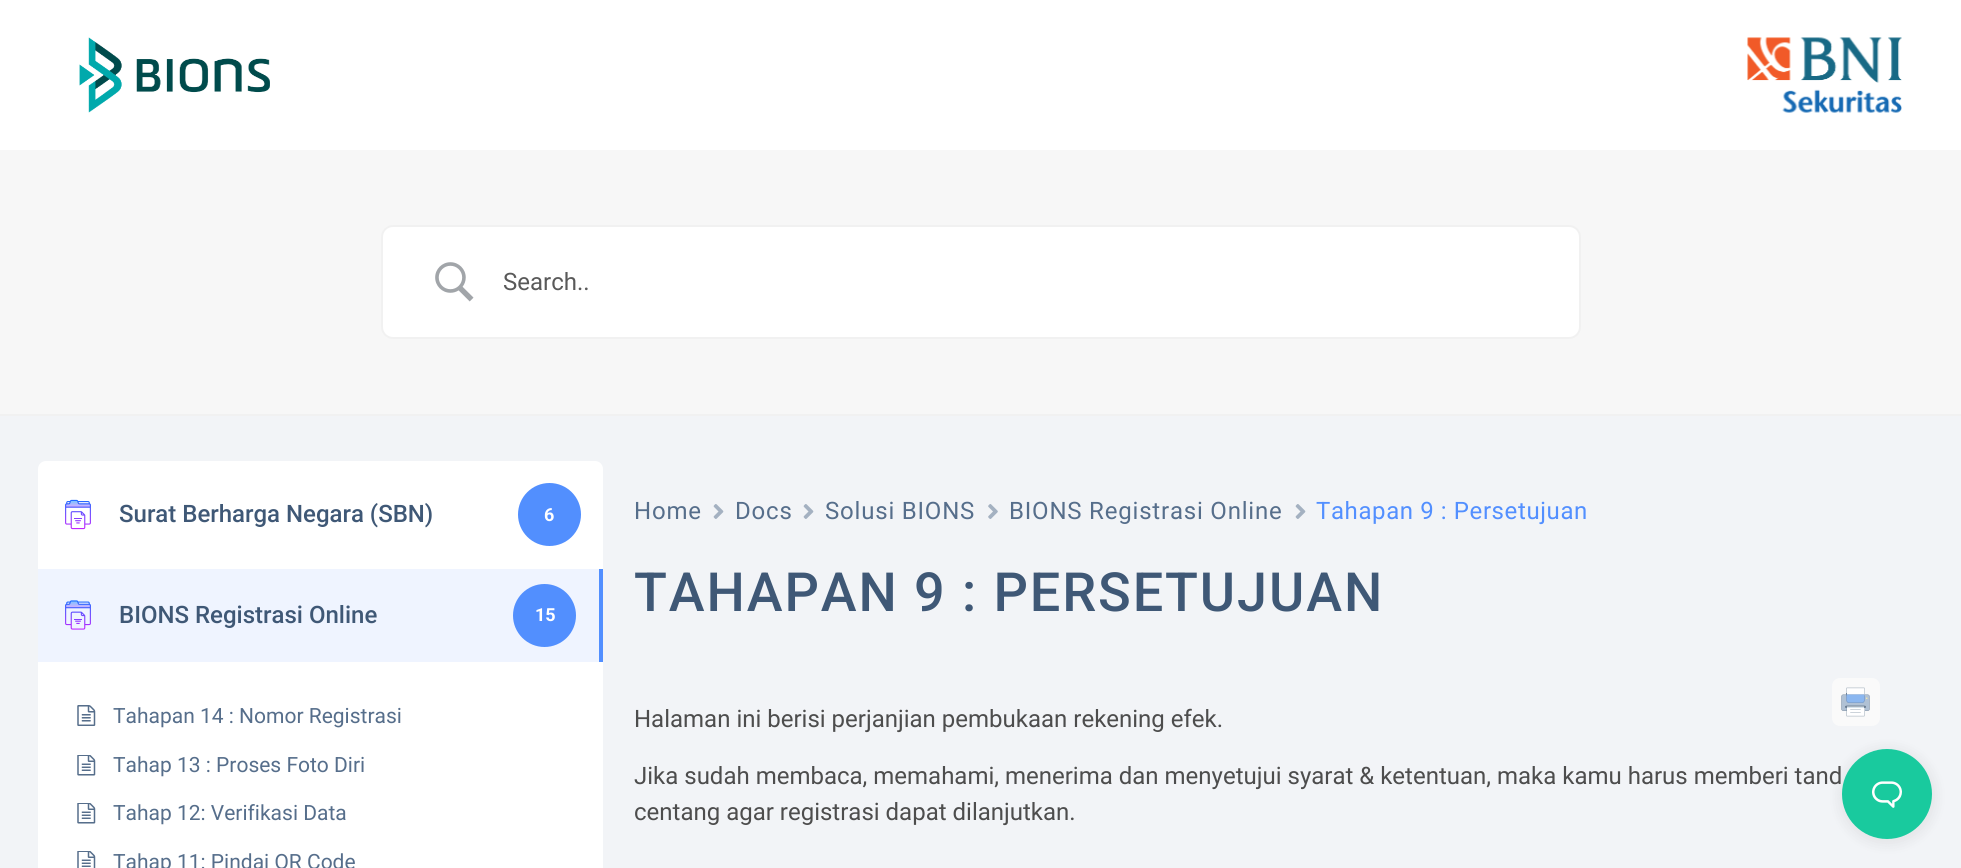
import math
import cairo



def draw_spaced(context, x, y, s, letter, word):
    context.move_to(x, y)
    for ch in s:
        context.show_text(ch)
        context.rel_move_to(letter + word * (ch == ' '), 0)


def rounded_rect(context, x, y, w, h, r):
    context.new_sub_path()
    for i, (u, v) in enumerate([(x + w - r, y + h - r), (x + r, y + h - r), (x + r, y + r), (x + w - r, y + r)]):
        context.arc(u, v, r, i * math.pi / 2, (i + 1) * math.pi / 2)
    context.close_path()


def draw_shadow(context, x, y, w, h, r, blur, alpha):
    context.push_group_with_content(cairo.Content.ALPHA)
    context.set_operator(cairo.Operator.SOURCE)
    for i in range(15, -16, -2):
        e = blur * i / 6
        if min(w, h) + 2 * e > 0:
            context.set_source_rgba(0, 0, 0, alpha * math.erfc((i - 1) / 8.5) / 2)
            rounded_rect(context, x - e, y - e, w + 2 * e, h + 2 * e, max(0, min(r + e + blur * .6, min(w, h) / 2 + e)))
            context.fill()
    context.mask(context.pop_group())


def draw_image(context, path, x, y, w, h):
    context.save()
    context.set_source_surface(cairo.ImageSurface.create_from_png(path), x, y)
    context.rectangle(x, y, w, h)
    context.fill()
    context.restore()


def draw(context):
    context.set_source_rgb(1, 1, 1)
    context.paint()
    draw_image(context, "images/1.png", 79, 37, 191, 76)
    draw_image(context, "images/2.png", 1747, 37, 155, 76)
    context.set_source_rgb(242 / 255, 244 / 255, 247 / 255)
    context.rectangle(0, 416, 1961, 452)
    context.fill()
    context.set_source_rgb(247 / 255, 247 / 255, 247 / 255)
    context.rectangle(0, 150, 1961, 264)
    context.fill()
    context.set_source_rgb(241 / 255, 241 / 255, 241 / 255)
    context.rectangle(0, 414, 1961, 2)
    context.fill()
    context.set_source_rgb(1, 1, 1)
    rounded_rect(context, 382, 226, 1198, 112, 11)
    context.fill_preserve()
    context.set_source_rgb(241 / 255, 241 / 255, 241 / 255)
    context.stroke()
    draw_image(context, "images/3.png", 435, 262, 39, 40)
    context.set_source_rgb(1, 1, 1)
    rounded_rect(context, 38, 461, 565, 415, 8)
    context.fill()
    draw_image(context, "images/4.png", 65, 499, 26, 31)
    context.set_source_rgb(82 / 255, 143 / 255, 254 / 255)
    context.arc(549.5, 514.5, 31.5, 0, 2 * math.pi)
    context.fill()
    context.set_source_rgb(239 / 255, 244 / 255, 1)
    context.rectangle(38, 569, 561, 93)
    context.fill()
    context.set_source_rgb(82 / 255, 143 / 255, 1)
    context.rectangle(599, 569, 4, 93)
    context.fill()
    draw_image(context, "images/5.png", 65, 600, 26, 30)
    context.set_source_rgb(82 / 255, 143 / 255, 254 / 255)
    context.arc(544.5, 615.5, 31.5, 0, 2 * math.pi)
    context.fill()
    draw_image(context, "images/6.png", 77, 705, 19, 21)
    draw_image(context, "images/7.png", 77, 755, 19, 21)
    draw_image(context, "images/7.png", 77, 803, 19, 21)
    draw_image(context, "images/8.png", 77, 851, 19, 17)
    draw_image(context, "images/9.png", 713, 504, 11, 15)
    draw_image(context, "images/9.png", 803, 504, 11, 15)
    draw_image(context, "images/10.png", 988, 504, 10, 15)
    draw_image(context, "images/9.png", 1295, 504, 11, 15)
    context.set_source_rgb(250 / 255, 250 / 255, 250 / 255)
    rounded_rect(context, 1832, 678, 48, 48, 8)
    context.fill()
    draw_image(context, "images/11.png", 1841, 687, 29, 30)
    context.set_source_rgb(0, 0, 0)
    draw_shadow(context, 1841, 750, 93, 93, 46.5, 7.5, 0.08)
    context.set_source_rgb(25 / 255, 202 / 255, 158 / 255)
    context.arc(1887, 794, 45, 0, 2 * math.pi)
    context.fill()
    draw_image(context, "images/12.png", 1872, 781, 30, 27)
    context.select_font_face("Roboto")
    context.set_font_size(24)
    context.set_source_rgb(89 / 255, 89 / 255, 89 / 255)
    context.move_to(503, 290)
    context.show_text("Search..")
    context.select_font_face("Roboto Medium")
    context.set_source_rgb(63 / 255, 88 / 255, 118 / 255)
    context.move_to(119, 522)
    context.show_text("Surat Berharga Negara (SBN)")
    context.select_font_face("Roboto", cairo.FontSlant.NORMAL, cairo.FontWeight.BOLD)
    context.set_font_size(18)
    context.set_source_rgb(1, 1, 1)
    context.move_to(544, 521)
    context.show_text("6")
    context.select_font_face("Roboto Medium")
    context.set_font_size(24)
    context.set_source_rgb(63 / 255, 88 / 255, 118 / 255)
    context.move_to(119, 623)
    context.show_text("BIONS Registrasi Online")
    context.select_font_face("Roboto", cairo.FontSlant.NORMAL, cairo.FontWeight.BOLD)
    context.set_font_size(18)
    context.set_source_rgb(1, 1, 1)
    context.move_to(535, 621)
    context.show_text("15")
    context.select_font_face("Roboto")
    context.set_font_size(21)
    context.set_source_rgb(86 / 255, 110 / 255, 139 / 255)
    context.move_to(113, 723)
    context.show_text("Tahapan 14 : Nomor Registrasi")
    context.move_to(113, 772)
    context.show_text("Tahap 13 : Proses Foto Diri")
    context.move_to(113, 820)
    context.show_text("Tahap 12: Verifikasi Data")
    context.move_to(113, 869)
    context.show_text("Tahap 11: Pindai QR Code")
    context.set_font_size(24)
    draw_spaced(context, 634, 519, "Home", 0.8, 0)
    draw_spaced(context, 735, 519, "Docs", 0.8, 0)
    draw_spaced(context, 825, 519, "Solusi BIONS", 0.8, 0)
    draw_spaced(context, 1009, 519, "BIONS Registrasi Online", 0.8, 0)
    context.set_source_rgb(82 / 255, 143 / 255, 1)
    draw_spaced(context, 1316, 519, "Tahapan 9 : Persetujuan", 0.6, 0)
    context.select_font_face("Roboto Medium")
    context.set_font_size(54)
    context.set_source_rgb(63 / 255, 88 / 255, 118 / 255)
    draw_spaced(context, 634, 611, "TAHAPAN 9 : PERSETUJUAN", 1.9, 0)
    context.select_font_face("Roboto")
    context.set_font_size(24)
    context.set_source_rgb(77 / 255, 77 / 255, 77 / 255)
    context.move_to(634, 727)
    context.show_text("Halaman ini berisi perjanjian pembukaan rekening efek.")
    context.move_to(634, 784)
    context.show_text("Jika sudah membaca, memahami, menerima dan menyetujui syarat & ketentuan, maka kamu harus memberi tand")
    context.move_to(634, 820)
    context.show_text("centang agar registrasi dapat dilanjutkan.")


surface = cairo.ImageSurface(cairo.Format.RGB24, 1961, 868)
context = cairo.Context(surface)
options = cairo.FontOptions()
options.set_hint_metrics(cairo.HintMetrics.OFF)
options.set_hint_style(cairo.HintStyle.NONE)
context.set_font_options(options)
context.set_miter_limit(4)
draw(context)
surface.write_to_png("out.png")
